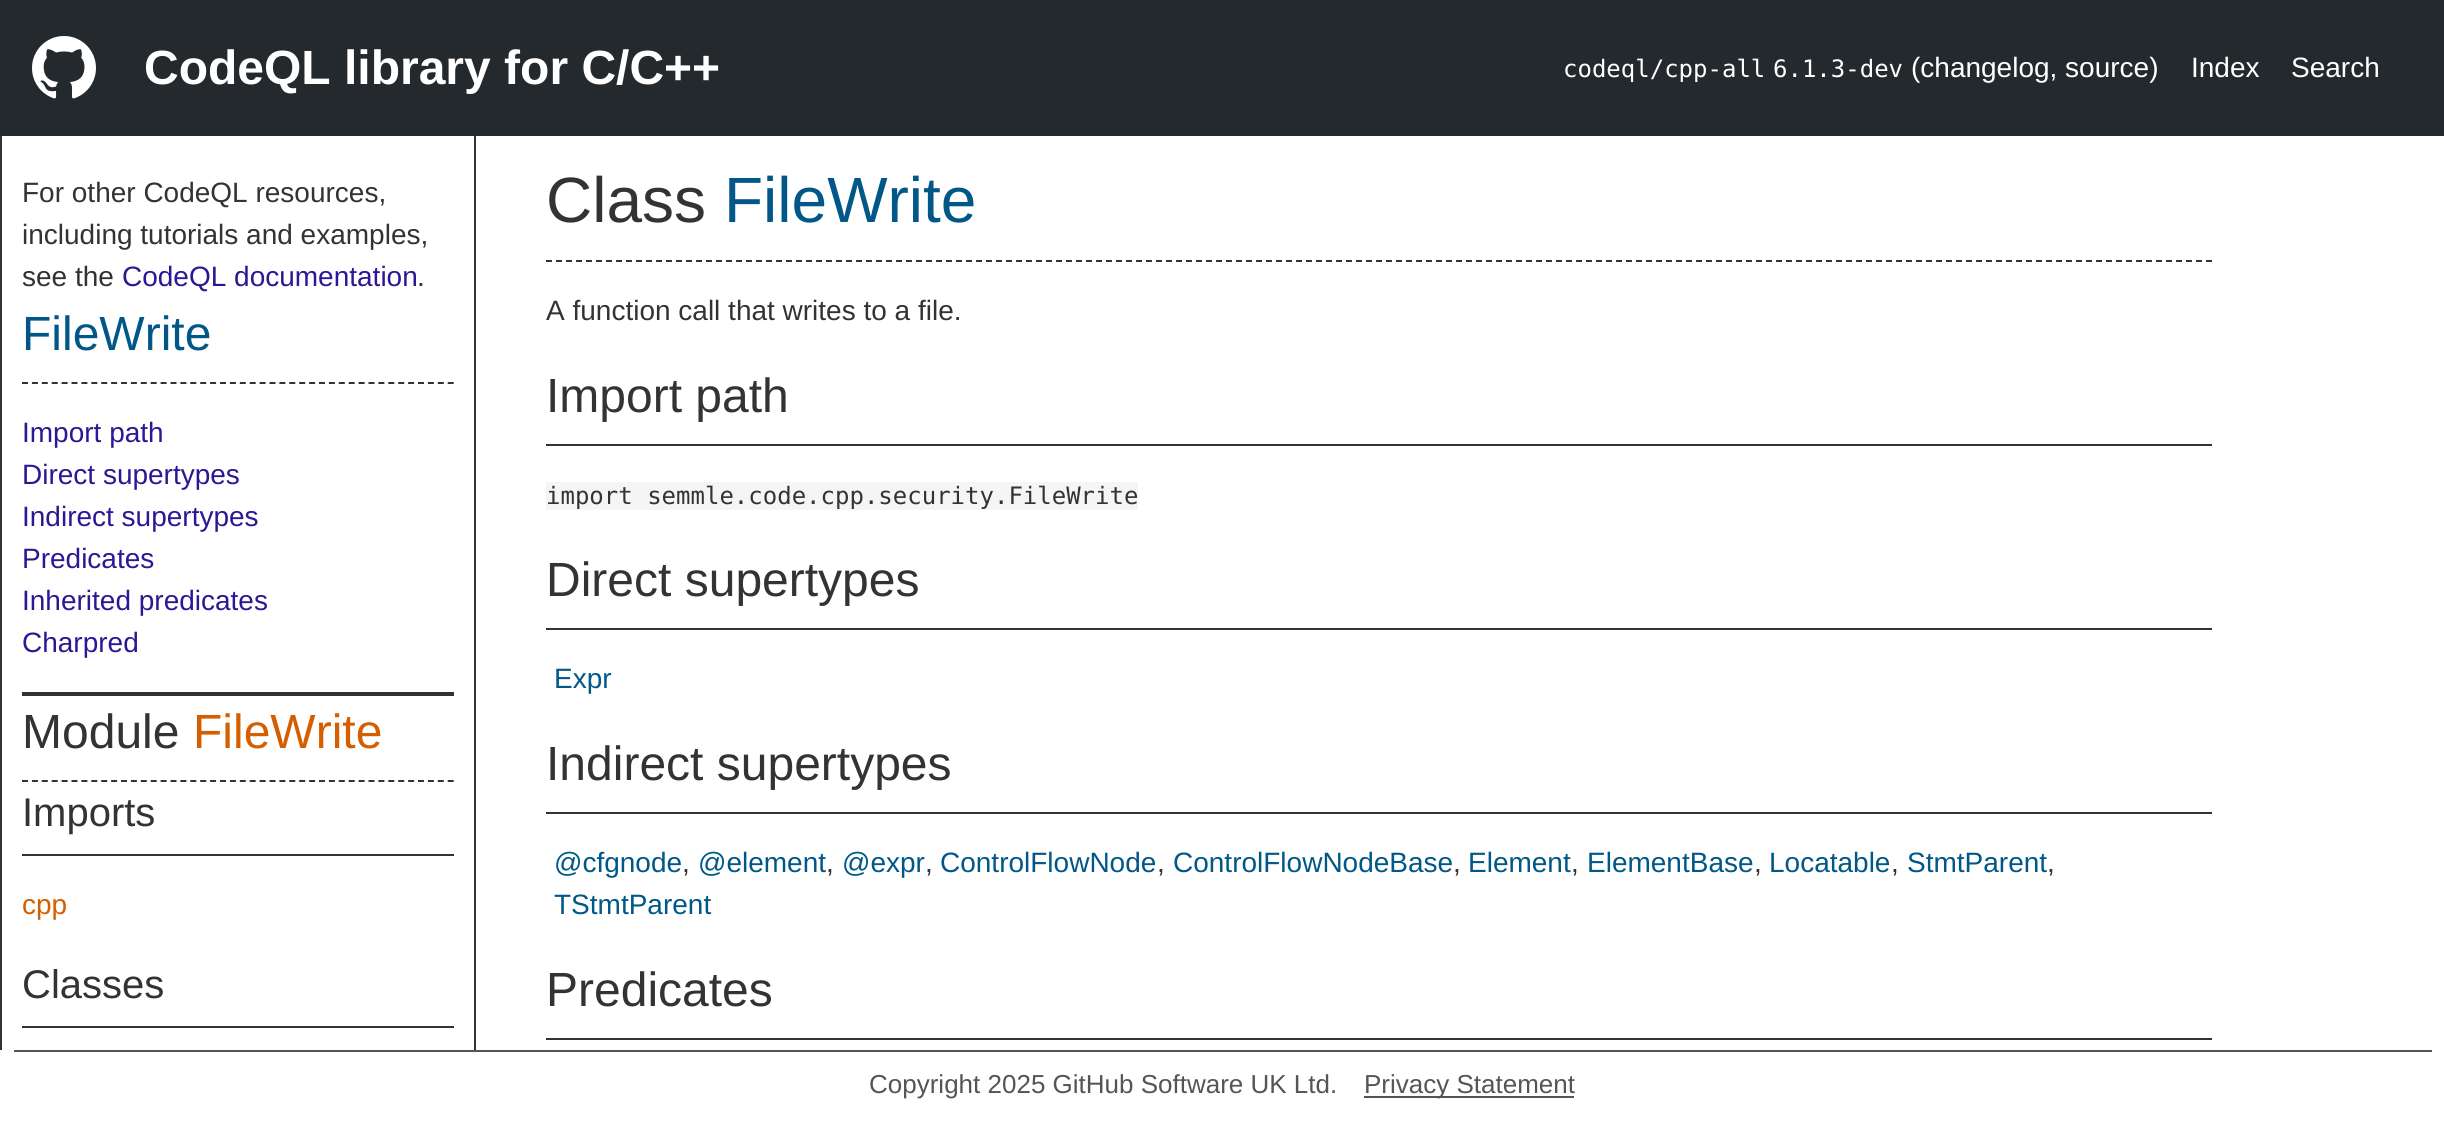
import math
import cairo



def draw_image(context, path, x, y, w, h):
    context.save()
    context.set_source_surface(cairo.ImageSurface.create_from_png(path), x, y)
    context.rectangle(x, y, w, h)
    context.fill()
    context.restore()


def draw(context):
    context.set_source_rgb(1, 1, 1)
    context.paint()
    context.set_source_rgb(36 / 255, 41 / 255, 46 / 255)
    context.rectangle(0, 0, 2444, 136)
    context.fill()
    draw_image(context, "images/1.png", 32, 36, 64, 63)
    context.set_source_rgb(51 / 255, 51 / 255, 51 / 255)
    context.rectangle(474, 136, 2, 914)
    context.fill()
    context.rectangle(0, 136, 2, 914)
    context.fill()
    context.rectangle(22, 692, 432, 4)
    context.fill()
    context.new_path()
    context.move_to(22, 383)
    context.line_to(454, 383)
    context.set_dash([6, 3.9])
    context.stroke()
    context.new_path()
    context.move_to(22, 781)
    context.line_to(454, 781)
    context.stroke()
    context.rectangle(22, 854, 432, 2)
    context.fill()
    context.rectangle(22, 1026, 432, 2)
    context.fill()
    context.new_path()
    context.move_to(546, 261)
    context.line_to(2212, 261)
    context.set_dash([6, 4])
    context.stroke()
    context.rectangle(546, 444, 1666, 2)
    context.fill()
    context.set_source_rgb(245 / 255, 245 / 255, 245 / 255)
    context.rectangle(546, 482, 592, 28)
    context.fill()
    context.set_source_rgb(51 / 255, 51 / 255, 51 / 255)
    context.rectangle(546, 628, 1666, 2)
    context.fill()
    context.rectangle(546, 812, 1666, 2)
    context.fill()
    context.rectangle(546, 1038, 1666, 2)
    context.fill()
    context.set_source_rgb(85 / 255, 85 / 255, 85 / 255)
    context.rectangle(14, 1050, 2418, 2)
    context.fill()
    context.rectangle(1364, 1096, 210, 2)
    context.fill()
    context.select_font_face("Liberation Sans", cairo.FontSlant.NORMAL, cairo.FontWeight.BOLD)
    context.set_font_size(48)
    context.set_source_rgb(1, 1, 1)
    context.move_to(144, 84)
    context.show_text("CodeQL library for C/C++")
    context.select_font_face("DejaVu Sans Mono")
    context.set_font_size(24)
    context.move_to(1563, 77)
    context.show_text("codeql/cpp-all")
    context.move_to(1773, 77)
    context.show_text("6.1.3-dev")
    context.select_font_face("Liberation Sans")
    context.set_font_size(28)
    context.move_to(1911, 77)
    context.show_text("(changelog, source)")
    context.move_to(2191, 77)
    context.show_text("Index")
    context.move_to(2291, 77)
    context.show_text("Search")
    context.set_source_rgb(51 / 255, 51 / 255, 51 / 255)
    context.move_to(22, 202)
    context.show_text("For other CodeQL resources,")
    context.move_to(22, 244)
    context.show_text("including tutorials and examples,")
    context.move_to(22, 286)
    context.show_text("see the")
    context.set_source_rgb(47 / 255, 22 / 255, 149 / 255)
    context.move_to(122, 286)
    context.show_text("CodeQL documentation")
    context.set_source_rgb(51 / 255, 51 / 255, 51 / 255)
    context.move_to(417, 286)
    context.show_text(".")
    context.set_font_size(48)
    context.set_source_rgb(0, 87 / 255, 136 / 255)
    context.move_to(22, 350)
    context.show_text("FileWrite")
    context.set_font_size(28)
    context.set_source_rgb(47 / 255, 22 / 255, 149 / 255)
    context.move_to(22, 442)
    context.show_text("Import path")
    context.move_to(22, 484)
    context.show_text("Direct supertypes")
    context.move_to(22, 526)
    context.show_text("Indirect supertypes")
    context.move_to(22, 568)
    context.show_text("Predicates")
    context.move_to(22, 610)
    context.show_text("Inherited predicates")
    context.move_to(22, 652)
    context.show_text("Charpred")
    context.set_font_size(48)
    context.set_source_rgb(51 / 255, 51 / 255, 51 / 255)
    context.move_to(22, 748)
    context.show_text("Module")
    context.set_source_rgb(213 / 255, 94 / 255, 0)
    context.move_to(193, 748)
    context.show_text("FileWrite")
    context.set_font_size(40)
    context.set_source_rgb(51 / 255, 51 / 255, 51 / 255)
    context.move_to(22, 826)
    context.show_text("Imports")
    context.set_font_size(28)
    context.set_source_rgb(213 / 255, 94 / 255, 0)
    context.move_to(22, 914)
    context.show_text("cpp")
    context.set_font_size(40)
    context.set_source_rgb(51 / 255, 51 / 255, 51 / 255)
    context.move_to(22, 998)
    context.show_text("Classes")
    context.set_font_size(64)
    context.move_to(546, 222)
    context.show_text("Class")
    context.set_source_rgb(0, 87 / 255, 136 / 255)
    context.move_to(724, 222)
    context.show_text("FileWrite")
    context.set_font_size(28)
    context.set_source_rgb(51 / 255, 51 / 255, 51 / 255)
    context.move_to(546, 320)
    context.show_text("A function call that writes to a file.")
    context.set_font_size(48)
    context.move_to(546, 412)
    context.show_text("Import path")
    context.select_font_face("DejaVu Sans Mono")
    context.set_font_size(24)
    context.move_to(546, 504)
    context.show_text("import semmle.code.cpp.security.FileWrite")
    context.select_font_face("Liberation Sans")
    context.set_font_size(48)
    context.move_to(546, 596)
    context.show_text("Direct supertypes")
    context.set_font_size(28)
    context.set_source_rgb(0, 87 / 255, 136 / 255)
    context.move_to(554, 688)
    context.show_text("Expr")
    context.set_font_size(48)
    context.set_source_rgb(51 / 255, 51 / 255, 51 / 255)
    context.move_to(546, 780)
    context.show_text("Indirect supertypes")
    context.set_font_size(28)
    context.set_source_rgb(0, 87 / 255, 136 / 255)
    context.move_to(554, 872)
    context.show_text("@cfgnode")
    context.set_source_rgb(51 / 255, 51 / 255, 51 / 255)
    context.move_to(682, 872)
    context.show_text(",")
    context.set_source_rgb(0, 87 / 255, 136 / 255)
    context.move_to(698, 872)
    context.show_text("@element")
    context.set_source_rgb(51 / 255, 51 / 255, 51 / 255)
    context.move_to(826, 872)
    context.show_text(",")
    context.set_source_rgb(0, 87 / 255, 136 / 255)
    context.move_to(842, 872)
    context.show_text("@expr")
    context.set_source_rgb(51 / 255, 51 / 255, 51 / 255)
    context.move_to(925, 872)
    context.show_text(",")
    context.set_source_rgb(0, 87 / 255, 136 / 255)
    context.move_to(940, 872)
    context.show_text("ControlFlowNode")
    context.set_source_rgb(51 / 255, 51 / 255, 51 / 255)
    context.move_to(1157, 872)
    context.show_text(",")
    context.set_source_rgb(0, 87 / 255, 136 / 255)
    context.move_to(1173, 872)
    context.show_text("ControlFlowNodeBase")
    context.set_source_rgb(51 / 255, 51 / 255, 51 / 255)
    context.move_to(1453, 872)
    context.show_text(",")
    context.set_source_rgb(0, 87 / 255, 136 / 255)
    context.move_to(1468, 872)
    context.show_text("Element")
    context.set_source_rgb(51 / 255, 51 / 255, 51 / 255)
    context.move_to(1571, 872)
    context.show_text(",")
    context.set_source_rgb(0, 87 / 255, 136 / 255)
    context.move_to(1587, 872)
    context.show_text("ElementBase")
    context.set_source_rgb(51 / 255, 51 / 255, 51 / 255)
    context.move_to(1754, 872)
    context.show_text(",")
    context.set_source_rgb(0, 87 / 255, 136 / 255)
    context.move_to(1769, 872)
    context.show_text("Locatable")
    context.set_source_rgb(51 / 255, 51 / 255, 51 / 255)
    context.move_to(1891, 872)
    context.show_text(",")
    context.set_source_rgb(0, 87 / 255, 136 / 255)
    context.move_to(1907, 872)
    context.show_text("StmtParent")
    context.set_source_rgb(51 / 255, 51 / 255, 51 / 255)
    context.move_to(2047, 872)
    context.show_text(",")
    context.set_source_rgb(0, 87 / 255, 136 / 255)
    context.move_to(554, 914)
    context.show_text("TStmtParent")
    context.set_font_size(48)
    context.set_source_rgb(51 / 255, 51 / 255, 51 / 255)
    context.move_to(546, 1006)
    context.show_text("Predicates")
    context.set_font_size(26)
    context.set_source_rgb(85 / 255, 85 / 255, 85 / 255)
    context.move_to(869, 1093)
    context.show_text("Copyright 2025 GitHub Software UK Ltd.")
    context.move_to(1364, 1093)
    context.show_text("Privacy Statement")


surface = cairo.ImageSurface(cairo.Format.RGB24, 2444, 1129)
context = cairo.Context(surface)
options = cairo.FontOptions()
options.set_hint_metrics(cairo.HintMetrics.OFF)
options.set_hint_style(cairo.HintStyle.NONE)
context.set_font_options(options)
context.set_miter_limit(4)
draw(context)
surface.write_to_png("out.png")
